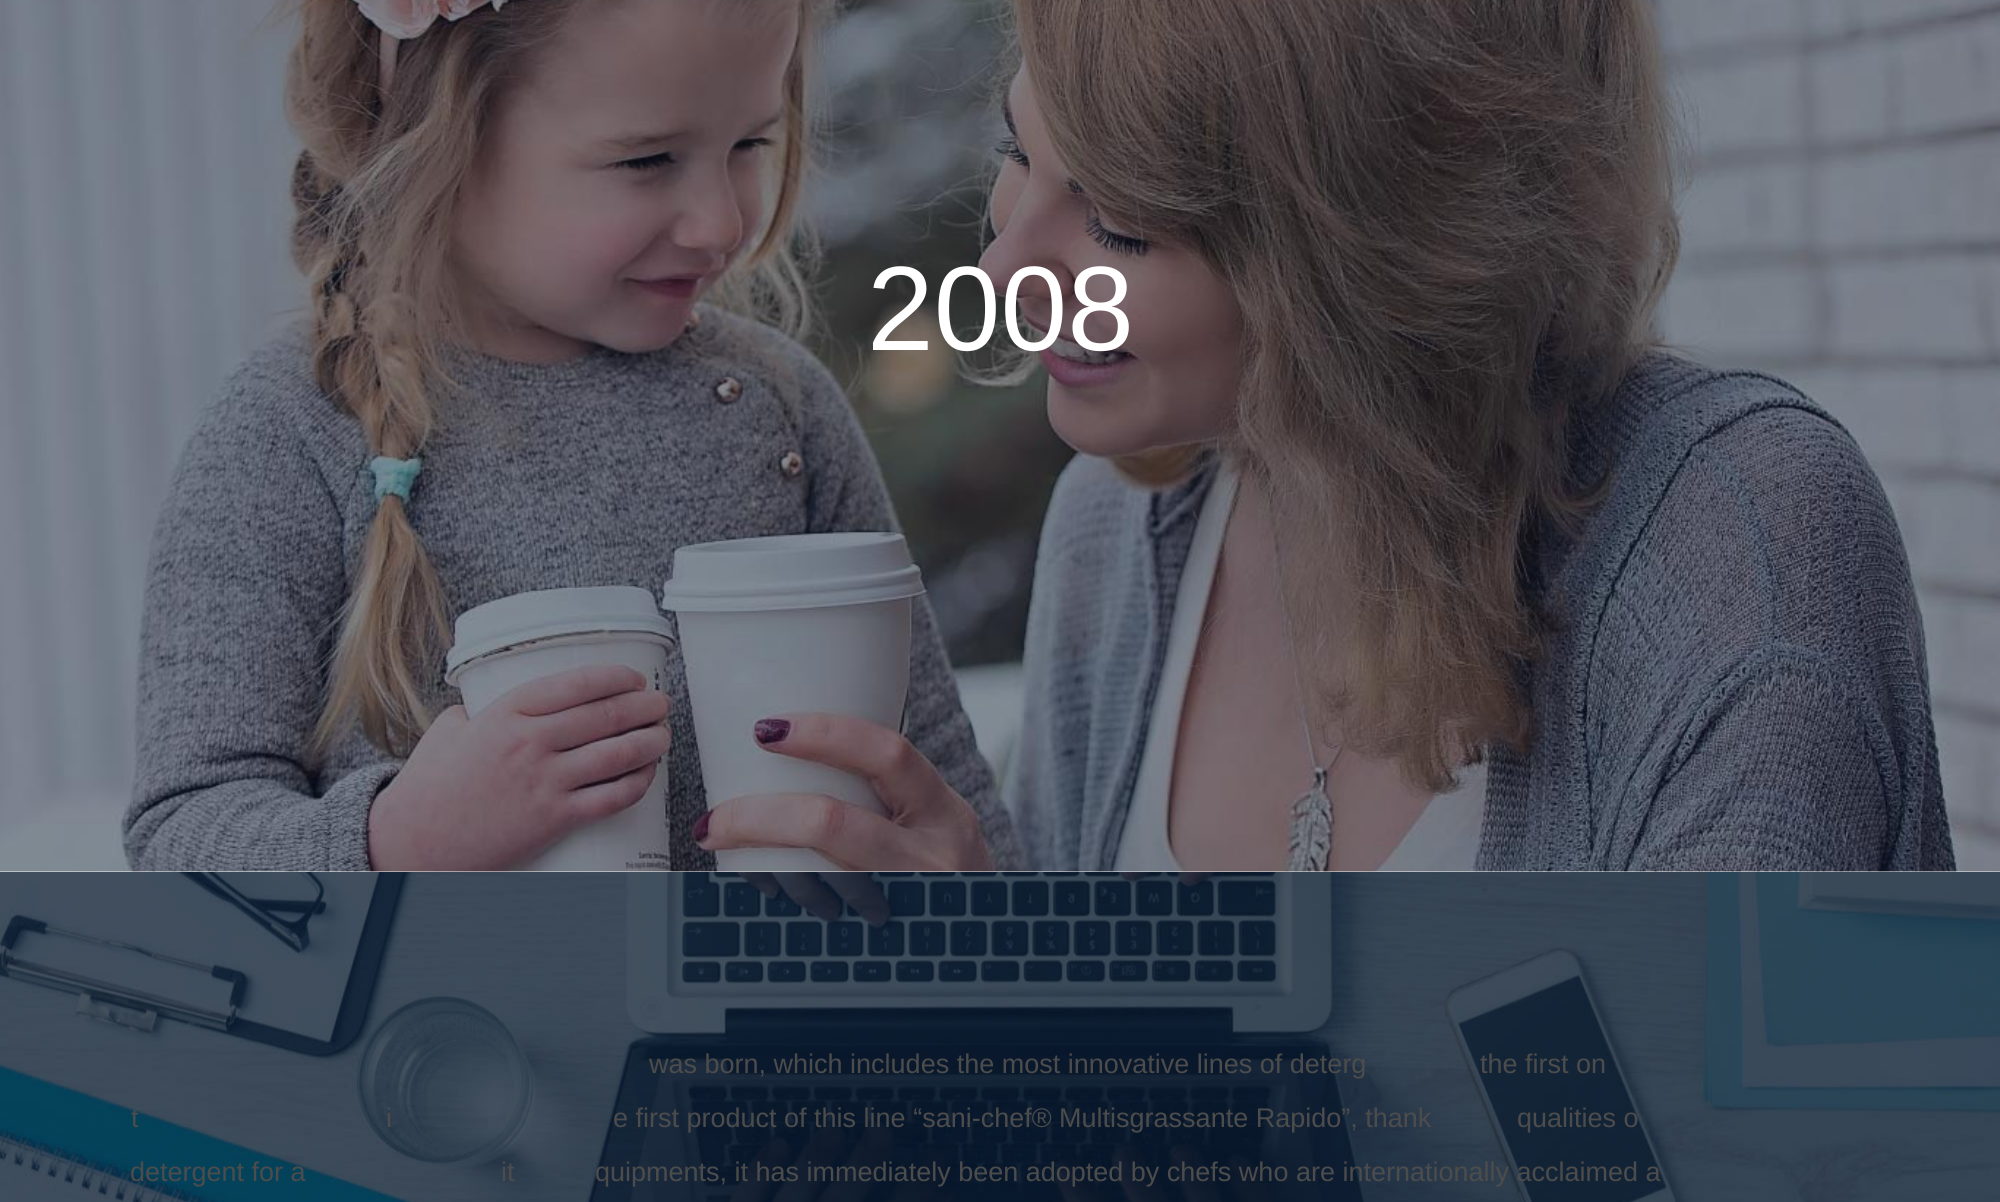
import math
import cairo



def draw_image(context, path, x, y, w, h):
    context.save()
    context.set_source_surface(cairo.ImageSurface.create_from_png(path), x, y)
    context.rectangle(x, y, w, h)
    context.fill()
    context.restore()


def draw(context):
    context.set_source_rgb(246 / 255, 246 / 255, 246 / 255)
    context.paint()
    draw_image(context, "images/1.png", 0, 0, 2000, 872)
    draw_image(context, "images/2.png", 0, 872, 2000, 330)
    context.select_font_face("Liberation Sans")
    context.set_font_size(120)
    context.set_source_rgb(1, 1, 1)
    context.move_to(867, 350)
    context.show_text("2008")
    context.set_font_size(27)
    context.set_source_rgb(76 / 255, 76 / 255, 76 / 255)
    context.move_to(649, 1073)
    context.show_text("was born, which includes the most innovative lines of deterg")
    context.move_to(1480, 1073)
    context.show_text("the first on")
    context.move_to(131, 1127)
    context.show_text("t")
    context.move_to(386, 1127)
    context.show_text("i")
    context.move_to(613, 1127)
    context.show_text("e first product of this line “sani-chef® Multisgrassante Rapido”, thank")
    context.move_to(1517, 1127)
    context.show_text("qualities o")
    context.move_to(130, 1181)
    context.show_text("detergent for a")
    context.move_to(501, 1181)
    context.show_text("it")
    context.move_to(595, 1181)
    context.show_text("quipments, it has immediately been adopted by chefs who are internationally acclaimed a")


surface = cairo.ImageSurface(cairo.Format.RGB24, 2000, 1202)
context = cairo.Context(surface)
options = cairo.FontOptions()
options.set_hint_metrics(cairo.HintMetrics.OFF)
options.set_hint_style(cairo.HintStyle.NONE)
context.set_font_options(options)
context.set_miter_limit(4)
draw(context)
surface.write_to_png("out.png")
